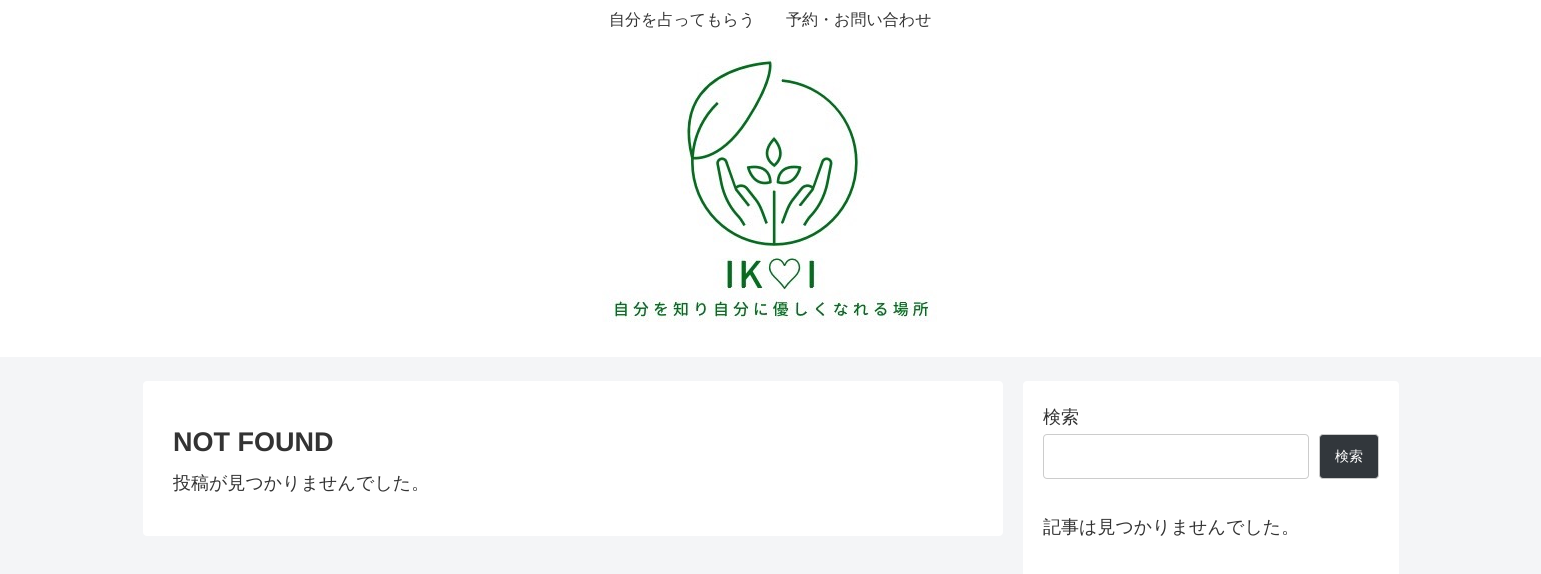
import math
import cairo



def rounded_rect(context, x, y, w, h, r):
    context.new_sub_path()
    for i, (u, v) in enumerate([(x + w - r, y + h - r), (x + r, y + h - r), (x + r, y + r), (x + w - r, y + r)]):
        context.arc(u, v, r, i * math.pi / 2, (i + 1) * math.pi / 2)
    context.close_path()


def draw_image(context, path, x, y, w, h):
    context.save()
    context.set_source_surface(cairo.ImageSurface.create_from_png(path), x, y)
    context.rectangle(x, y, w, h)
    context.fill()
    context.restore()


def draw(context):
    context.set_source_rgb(244 / 255, 245 / 255, 247 / 255)
    context.paint()
    context.set_source_rgb(1, 1, 1)
    context.rectangle(0, 0, 1541, 357)
    context.fill()
    draw_image(context, "images/1.png", 602, 50, 335, 272)
    rounded_rect(context, 143, 381, 860, 155, 4)
    context.fill()
    rounded_rect(context, 1023, 381, 376, 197, 4)
    context.fill()
    rounded_rect(context, 1043.5, 434.5, 265, 44, 3.5)
    context.set_source_rgb(204 / 255, 204 / 255, 204 / 255)
    context.set_line_width(1)
    context.stroke()
    context.set_source_rgb(50 / 255, 55 / 255, 60 / 255)
    rounded_rect(context, 1319.5, 434.5, 59, 44, 3.5)
    context.fill_preserve()
    context.set_source_rgb(204 / 255, 204 / 255, 204 / 255)
    context.stroke()
    context.select_font_face("WenQuanYi Zen Hei Medium")
    context.set_font_size(16)
    context.set_source_rgb(51 / 255, 51 / 255, 51 / 255)
    context.move_to(609, 25)
    context.show_text("自分を占ってもらう")
    context.move_to(786, 25)
    context.show_text("予約・お問い合わせ")
    context.select_font_face("Liberation Sans", cairo.FontSlant.NORMAL, cairo.FontWeight.BOLD)
    context.set_font_size(27)
    context.move_to(173, 451)
    context.show_text("NOT FOUND")
    context.select_font_face("WenQuanYi Zen Hei Medium")
    context.set_font_size(18)
    context.move_to(173, 489)
    context.show_text("投稿が見つかりませんでした。")
    context.move_to(1043, 423)
    context.show_text("検索")
    context.set_font_size(14)
    context.set_source_rgb(1, 1, 1)
    context.move_to(1335, 461)
    context.show_text("検索")
    context.set_font_size(18)
    context.set_source_rgb(51 / 255, 51 / 255, 51 / 255)
    context.move_to(1043, 533)
    context.show_text("記事は見つかりませんでした。")


surface = cairo.ImageSurface(cairo.Format.RGB24, 1541, 574)
context = cairo.Context(surface)
options = cairo.FontOptions()
options.set_hint_metrics(cairo.HintMetrics.OFF)
options.set_hint_style(cairo.HintStyle.NONE)
context.set_font_options(options)
context.set_miter_limit(4)
draw(context)
surface.write_to_png("out.png")
